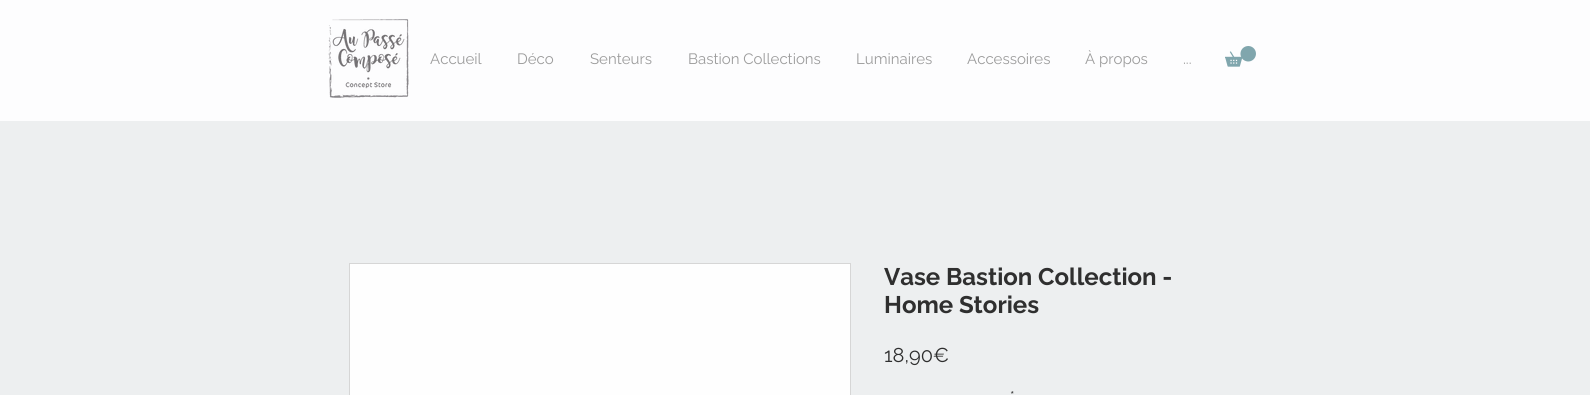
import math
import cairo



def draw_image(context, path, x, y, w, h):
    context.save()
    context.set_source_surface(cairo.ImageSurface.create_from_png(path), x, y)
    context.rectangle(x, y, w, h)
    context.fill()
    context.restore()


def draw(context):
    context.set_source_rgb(237 / 255, 239 / 255, 240 / 255)
    context.paint()
    context.set_source_rgb(253 / 255, 253 / 255, 254 / 255)
    context.rectangle(0, 0, 1590, 121)
    context.fill()
    draw_image(context, "images/1.png", 328, 19, 81, 79)
    draw_image(context, "images/2.png", 1225, 46, 31, 21)
    context.rectangle(349.5, 263.5, 501, 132)
    context.set_source_rgb(214 / 255, 214 / 255, 214 / 255)
    context.set_line_width(1)
    context.stroke()
    context.set_source_rgb(254 / 255, 254 / 255, 254 / 255)
    context.rectangle(350, 264, 500, 131)
    context.fill()
    context.select_font_face("Raleway")
    context.set_font_size(15)
    context.set_source_rgb(156 / 255, 156 / 255, 156 / 255)
    context.move_to(430, 64)
    context.show_text("Accueil")
    context.move_to(517, 64)
    context.show_text("Déco")
    context.move_to(590, 64)
    context.show_text("Senteurs")
    context.move_to(688, 64)
    context.show_text("Bastion Collections")
    context.move_to(856, 64)
    context.show_text("Luminaires")
    context.move_to(967, 64)
    context.show_text("Accessoires")
    context.move_to(1085, 64)
    context.show_text("À propos")
    context.move_to(1183, 64)
    context.show_text("...")
    context.select_font_face("Raleway", cairo.FontSlant.NORMAL, cairo.FontWeight.BOLD)
    context.set_font_size(24)
    context.set_source_rgb(47 / 255, 47 / 255, 47 / 255)
    context.move_to(884, 285)
    context.show_text("Vase Bastion Collection -")
    context.move_to(884, 313)
    context.show_text("Home Stories")
    context.select_font_face("Raleway")
    context.set_font_size(20)
    context.move_to(884, 362)
    context.show_text("18,90€")
    context.set_font_size(14)
    context.move_to(1010, 401)
    context.show_text("*")


surface = cairo.ImageSurface(cairo.Format.RGB24, 1590, 395)
context = cairo.Context(surface)
options = cairo.FontOptions()
options.set_hint_metrics(cairo.HintMetrics.OFF)
options.set_hint_style(cairo.HintStyle.NONE)
context.set_font_options(options)
context.set_miter_limit(4)
draw(context)
surface.write_to_png("out.png")
